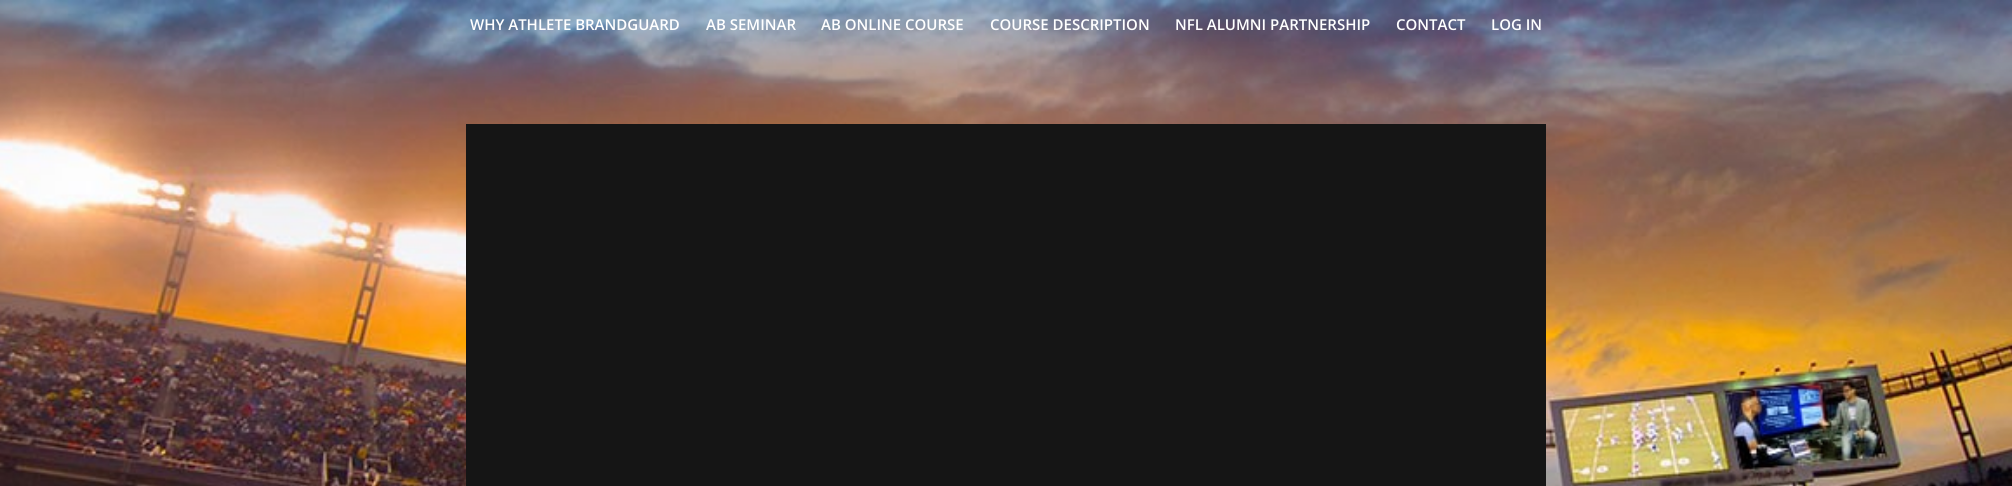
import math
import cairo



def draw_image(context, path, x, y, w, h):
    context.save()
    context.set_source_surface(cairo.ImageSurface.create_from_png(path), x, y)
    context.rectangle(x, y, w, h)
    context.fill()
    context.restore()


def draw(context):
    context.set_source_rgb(1, 1, 1)
    context.paint()
    draw_image(context, "images/1.png", 0, 0, 2012, 486)
    context.set_source_rgb(21 / 255, 21 / 255, 21 / 255)
    context.rectangle(466, 124, 1080, 362)
    context.fill()
    context.select_font_face("Open Sans SemiBold")
    context.set_font_size(15)
    context.set_source_rgb(1, 1, 1)
    context.move_to(470, 30)
    context.show_text("WHY ATHLETE BRANDGUARD")
    context.move_to(706, 30)
    context.show_text("AB SEMINAR")
    context.move_to(821, 30)
    context.show_text("AB ONLINE COURSE")
    context.move_to(990, 30)
    context.show_text("COURSE DESCRIPTION")
    context.move_to(1175, 30)
    context.show_text("NFL ALUMNI PARTNERSHIP")
    context.move_to(1396, 30)
    context.show_text("CONTACT")
    context.move_to(1491, 30)
    context.show_text("LOG IN")


surface = cairo.ImageSurface(cairo.Format.RGB24, 2012, 486)
context = cairo.Context(surface)
options = cairo.FontOptions()
options.set_hint_metrics(cairo.HintMetrics.OFF)
options.set_hint_style(cairo.HintStyle.NONE)
context.set_font_options(options)
context.set_miter_limit(4)
draw(context)
surface.write_to_png("out.png")
